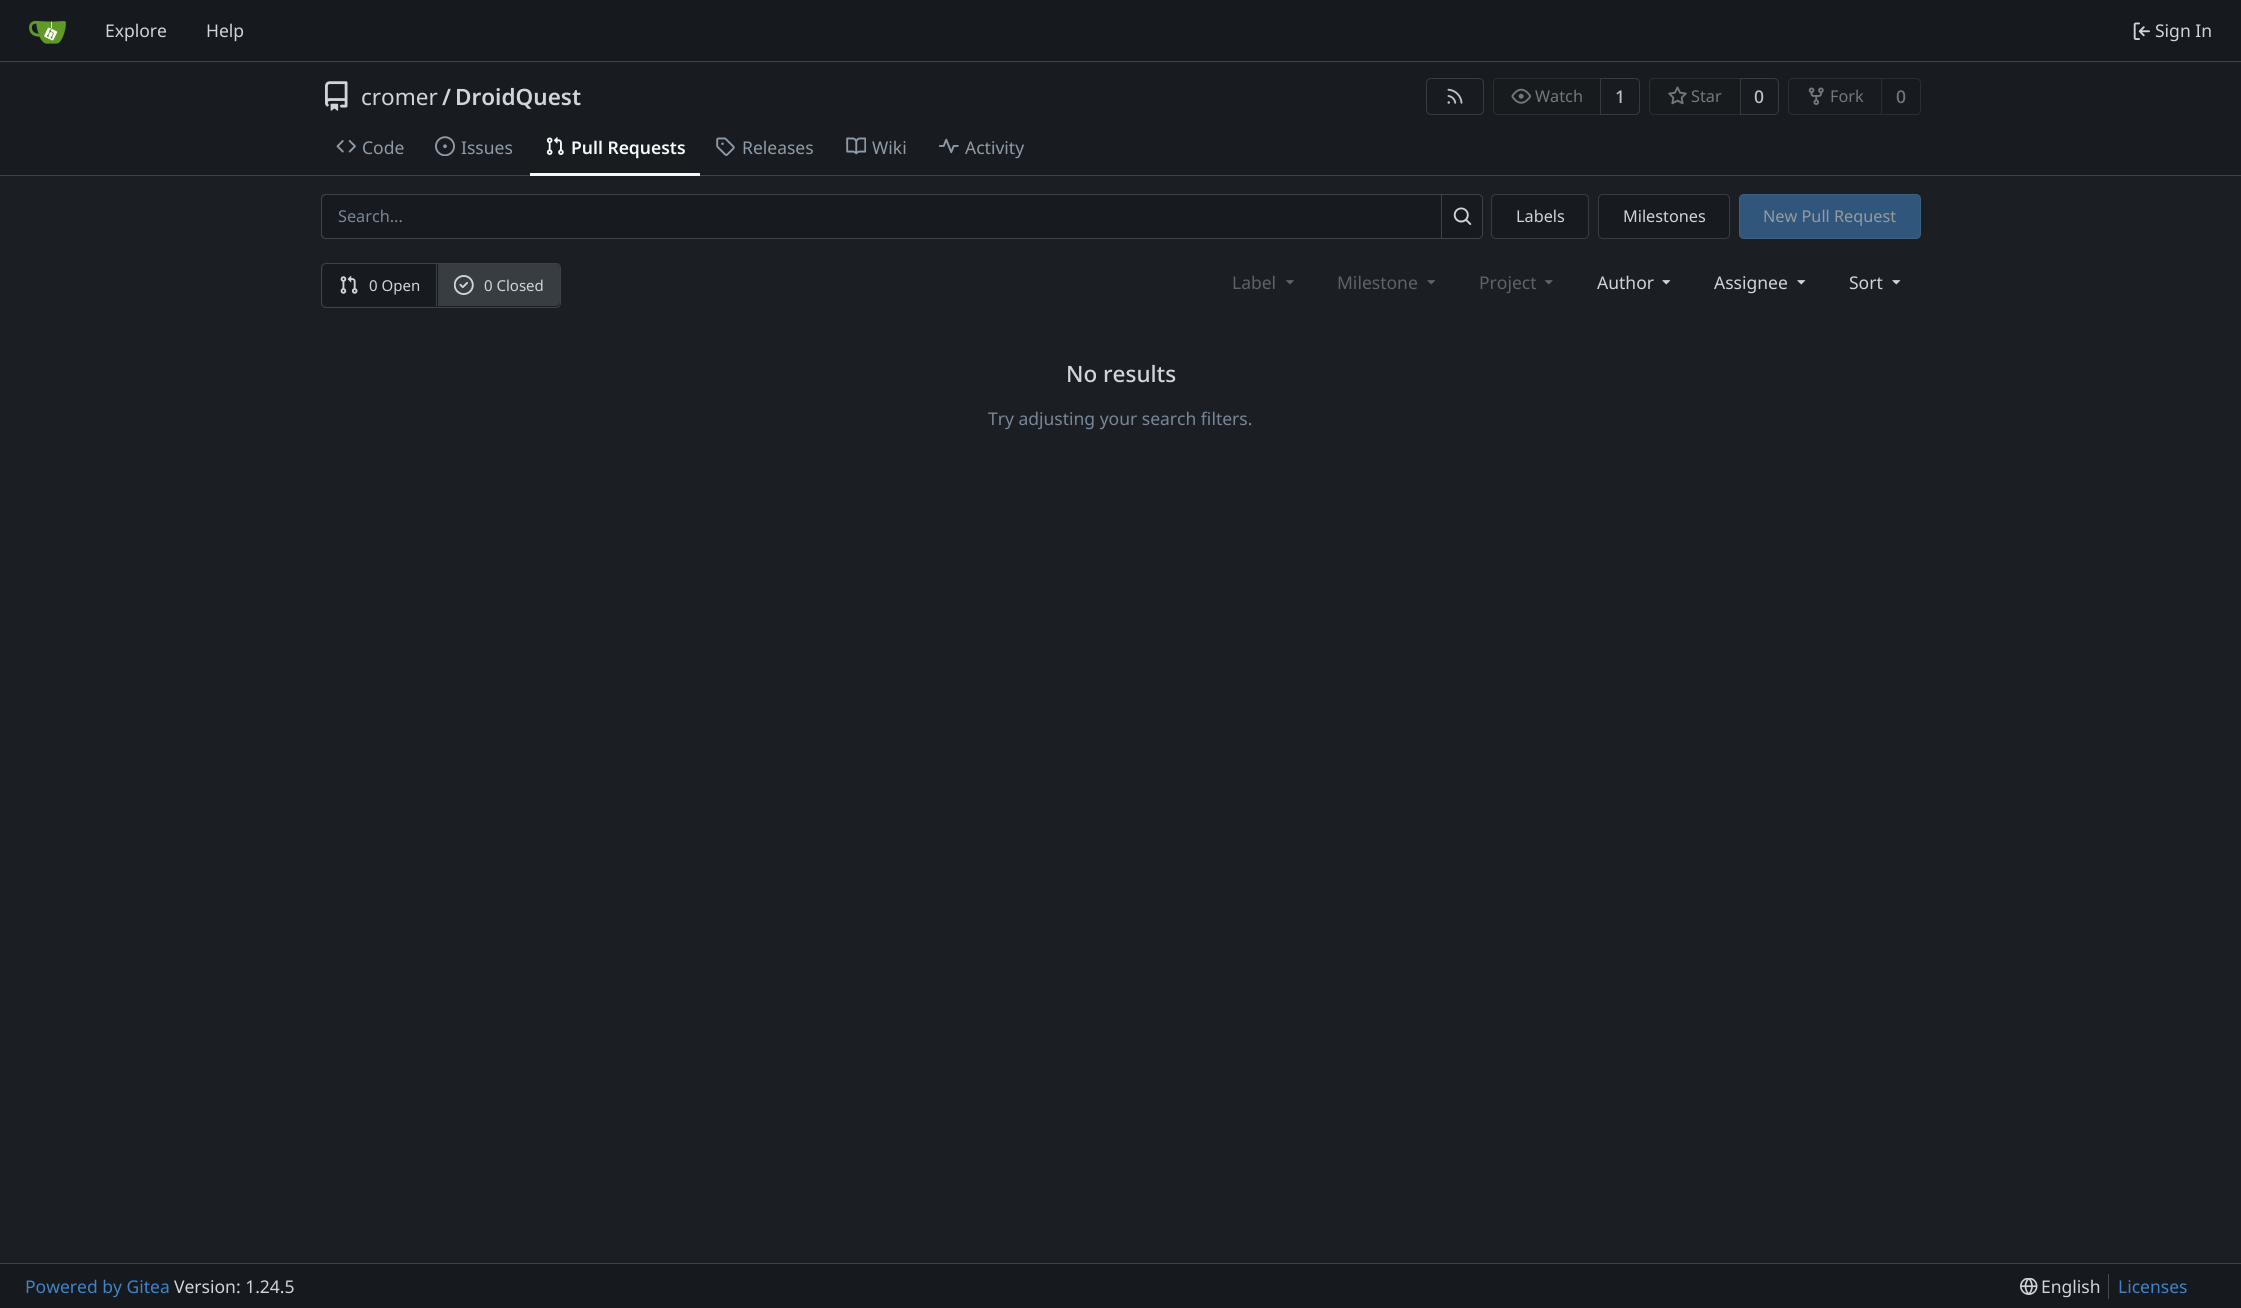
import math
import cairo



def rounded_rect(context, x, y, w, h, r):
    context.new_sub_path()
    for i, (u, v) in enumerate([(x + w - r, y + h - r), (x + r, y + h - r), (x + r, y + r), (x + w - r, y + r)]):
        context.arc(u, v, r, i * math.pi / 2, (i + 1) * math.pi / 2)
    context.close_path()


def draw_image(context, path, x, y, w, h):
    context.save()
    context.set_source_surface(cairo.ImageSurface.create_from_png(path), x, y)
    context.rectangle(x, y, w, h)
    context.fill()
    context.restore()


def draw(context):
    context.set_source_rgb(27 / 255, 31 / 255, 35 / 255)
    context.paint()
    context.set_source_rgb(22 / 255, 25 / 255, 29 / 255)
    context.rectangle(0, 0, 2241, 61)
    context.fill()
    context.set_source_rgb(59 / 255, 68 / 255, 76 / 255)
    context.rectangle(0, 61, 2241, 1)
    context.fill()
    draw_image(context, "images/1.png", 29, 20, 37, 24)
    draw_image(context, "images/2.png", 2133, 22, 17, 18)
    context.set_source_rgb(24 / 255, 28 / 255, 32 / 255)
    context.rectangle(0, 63, 2241, 112)
    context.fill()
    draw_image(context, "images/3.png", 325, 81, 23, 30)
    rounded_rect(context, 1426.5, 78.5, 57, 36, 4.5)
    context.set_source_rgb(56 / 255, 60 / 255, 65 / 255)
    context.set_line_width(1)
    context.stroke()
    draw_image(context, "images/4.png", 1447, 88, 16, 16)
    context.new_path()
    context.move_to(1600.5, 78.5)
    context.line_to(1635, 78.5)
    context.curve_to(1637.5, 78.5, 1639.5, 80.5, 1639.5, 83)
    context.line_to(1639.5, 110)
    context.curve_to(1639.5, 112.5, 1637.5, 114.5, 1635, 114.5)
    context.line_to(1600.5, 114.5)
    context.close_path()
    context.stroke()
    context.set_source_rgba(23 / 255, 26 / 255, 30 / 255, 0.55)
    context.new_path()
    context.move_to(1498, 78)
    context.line_to(1601, 78)
    context.line_to(1601, 115)
    context.line_to(1498, 115)
    context.curve_to(1495, 115, 1493, 113, 1493, 110)
    context.line_to(1493, 83)
    context.curve_to(1493, 80, 1495, 78, 1498, 78)
    context.close_path()
    context.fill()
    context.new_path()
    context.move_to(1498, 78.5)
    context.line_to(1600.5, 78.5)
    context.line_to(1600.5, 114.5)
    context.line_to(1498, 114.5)
    context.curve_to(1495.5, 114.5, 1493.5, 112.5, 1493.5, 110)
    context.line_to(1493.5, 83)
    context.curve_to(1493.5, 80.5, 1495.5, 78.5, 1498, 78.5)
    context.close_path()
    context.set_source_rgba(232 / 255, 243 / 255, 1, 0.09)
    context.stroke()
    draw_image(context, "images/5.png", 1511, 88, 20, 16)
    context.new_path()
    context.move_to(1740.5, 78.5)
    context.line_to(1774, 78.5)
    context.curve_to(1776.5, 78.5, 1778.5, 80.5, 1778.5, 83)
    context.line_to(1778.5, 110)
    context.curve_to(1778.5, 112.5, 1776.5, 114.5, 1774, 114.5)
    context.line_to(1740.5, 114.5)
    context.close_path()
    context.set_source_rgb(56 / 255, 60 / 255, 65 / 255)
    context.stroke()
    context.set_source_rgba(23 / 255, 26 / 255, 30 / 255, 0.55)
    context.new_path()
    context.move_to(1654, 78)
    context.line_to(1741, 78)
    context.line_to(1741, 115)
    context.line_to(1654, 115)
    context.curve_to(1651, 115, 1649, 113, 1649, 110)
    context.line_to(1649, 83)
    context.curve_to(1649, 80, 1651, 78, 1654, 78)
    context.close_path()
    context.fill()
    context.new_path()
    context.move_to(1654, 78.5)
    context.line_to(1740.5, 78.5)
    context.line_to(1740.5, 114.5)
    context.line_to(1654, 114.5)
    context.curve_to(1651.5, 114.5, 1649.5, 112.5, 1649.5, 110)
    context.line_to(1649.5, 83)
    context.curve_to(1649.5, 80.5, 1651.5, 78.5, 1654, 78.5)
    context.close_path()
    context.set_source_rgba(232 / 255, 243 / 255, 1, 0.09)
    context.stroke()
    draw_image(context, "images/6.png", 1668, 86, 19, 19)
    context.new_path()
    context.move_to(1793, 78.5)
    context.line_to(1882.5, 78.5)
    context.line_to(1882.5, 114.5)
    context.line_to(1793, 114.5)
    context.curve_to(1790.5, 114.5, 1788.5, 112.5, 1788.5, 110)
    context.line_to(1788.5, 83)
    context.curve_to(1788.5, 80.5, 1790.5, 78.5, 1793, 78.5)
    context.close_path()
    context.set_source_rgb(42 / 255, 47 / 255, 51 / 255)
    context.stroke()
    draw_image(context, "images/7.png", 1808, 87, 16, 18)
    context.set_source_rgb(23 / 255, 27 / 255, 31 / 255)
    context.new_path()
    context.move_to(1881.5, 78.5)
    context.line_to(1916, 78.5)
    context.curve_to(1918.5, 78.5, 1920.5, 80.5, 1920.5, 83)
    context.line_to(1920.5, 110)
    context.curve_to(1920.5, 112.5, 1918.5, 114.5, 1916, 114.5)
    context.line_to(1881.5, 114.5)
    context.close_path()
    context.fill_preserve()
    context.set_source_rgb(41 / 255, 46 / 255, 50 / 255)
    context.stroke()
    draw_image(context, "images/8.png", 336, 140, 20, 13)
    draw_image(context, "images/9.png", 435, 136, 20, 20)
    context.set_source_rgb(59 / 255, 68 / 255, 76 / 255)
    context.rectangle(0, 175, 2241, 1)
    context.fill()
    context.set_source_rgb(247 / 255, 248 / 255, 249 / 255)
    context.rectangle(530, 173, 170, 3)
    context.fill()
    draw_image(context, "images/10.png", 546, 137, 18, 18)
    draw_image(context, "images/11.png", 716, 137, 19, 19)
    draw_image(context, "images/12.png", 846, 137, 20, 18)
    draw_image(context, "images/13.png", 939, 138, 20, 16)
    context.set_source_rgb(23 / 255, 26 / 255, 30 / 255)
    context.new_path()
    context.move_to(326, 194)
    context.line_to(1441, 194)
    context.line_to(1441, 239)
    context.line_to(326, 239)
    context.curve_to(323, 239, 321, 237, 321, 234)
    context.line_to(321, 199)
    context.curve_to(321, 196, 323, 194, 326, 194)
    context.close_path()
    context.fill()
    context.set_source_rgb(59 / 255, 68 / 255, 76 / 255)
    context.set_fill_rule(cairo.FillRule.EVEN_ODD)
    context.new_path()
    context.move_to(326, 194)
    context.line_to(1441, 194)
    context.line_to(1441, 239)
    context.line_to(326, 239)
    context.curve_to(323, 239, 321, 237, 321, 234)
    context.line_to(321, 199)
    context.curve_to(321, 196, 323, 194, 326, 194)
    context.close_path()
    context.move_to(326, 195)
    context.line_to(1441, 195)
    context.line_to(1441, 238)
    context.line_to(326, 238)
    context.curve_to(324, 238, 322, 236, 322, 234)
    context.line_to(322, 199)
    context.curve_to(322, 197, 324, 195, 326, 195)
    context.close_path()
    context.fill()
    context.set_source_rgb(23 / 255, 26 / 255, 30 / 255)
    context.new_path()
    context.move_to(1441.5, 194.5)
    context.line_to(1478, 194.5)
    context.curve_to(1480.5, 194.5, 1482.5, 196.5, 1482.5, 199)
    context.line_to(1482.5, 234)
    context.curve_to(1482.5, 236.5, 1480.5, 238.5, 1478, 238.5)
    context.line_to(1441.5, 238.5)
    context.close_path()
    context.fill_preserve()
    context.set_source_rgb(59 / 255, 68 / 255, 76 / 255)
    context.stroke()
    draw_image(context, "images/14.png", 1453, 207, 19, 18)
    context.set_source_rgb(23 / 255, 26 / 255, 30 / 255)
    rounded_rect(context, 1491.5, 194.5, 97, 44, 4.5)
    context.fill_preserve()
    context.set_source_rgb(56 / 255, 60 / 255, 65 / 255)
    context.stroke()
    context.set_source_rgb(23 / 255, 26 / 255, 30 / 255)
    rounded_rect(context, 1598.5, 194.5, 131, 44, 4.5)
    context.fill_preserve()
    context.set_source_rgb(56 / 255, 60 / 255, 65 / 255)
    context.stroke()
    context.set_source_rgb(48 / 255, 86 / 255, 124 / 255)
    rounded_rect(context, 1739, 194, 182, 45, 5)
    context.fill()
    rounded_rect(context, 1739.5, 194.5, 181, 44, 4.5)
    context.set_source_rgba(140 / 255, 148 / 255, 156 / 255, 0.16)
    context.stroke()
    rounded_rect(context, 321.5, 263.5, 239, 44, 4.5)
    context.set_source_rgb(59 / 255, 68 / 255, 76 / 255)
    context.stroke()
    context.set_source_rgb(23 / 255, 26 / 255, 30 / 255)
    context.new_path()
    context.move_to(328, 264)
    context.line_to(438, 264)
    context.line_to(438, 306)
    context.line_to(328, 306)
    context.curve_to(325, 306, 323, 304, 323, 301)
    context.line_to(323, 269)
    context.curve_to(323, 266, 325, 264, 328, 264)
    context.close_path()
    context.fill()
    draw_image(context, "images/15.png", 340, 275, 18, 19)
    context.set_source_rgb(59 / 255, 68 / 255, 76 / 255)
    context.rectangle(436, 264, 1, 42)
    context.fill()
    context.set_source_rgba(232 / 255, 243 / 255, 1, 0.14)
    context.new_path()
    context.move_to(438, 264)
    context.line_to(555, 264)
    context.curve_to(558, 264, 560, 266, 560, 269)
    context.line_to(560, 301)
    context.curve_to(560, 304, 558, 306, 555, 306)
    context.line_to(438, 306)
    context.close_path()
    context.fill()
    draw_image(context, "images/16.png", 454, 275, 20, 20)
    draw_image(context, "images/17.png", 1286, 280, 8, 5)
    draw_image(context, "images/18.png", 1427, 280, 9, 5)
    draw_image(context, "images/19.png", 1544, 280, 9, 5)
    draw_image(context, "images/20.png", 1662, 280, 9, 5)
    draw_image(context, "images/20.png", 1797, 280, 9, 5)
    draw_image(context, "images/20.png", 1892, 280, 9, 5)
    context.set_source_rgb(22 / 255, 25 / 255, 29 / 255)
    context.rectangle(0, 1264, 2241, 44)
    context.fill()
    context.set_source_rgb(59 / 255, 68 / 255, 76 / 255)
    context.rectangle(0, 1263, 2241, 1)
    context.fill()
    draw_image(context, "images/21.png", 2020, 1278, 18, 17)
    context.set_source_rgb(65 / 255, 75 / 255, 84 / 255)
    context.rectangle(2108, 1274, 1, 25)
    context.fill()
    context.select_font_face("Noto Sans")
    context.set_font_size(17.5)
    context.set_source_rgb(208 / 255, 213 / 255, 218 / 255)
    context.move_to(105, 37)
    context.show_text("Explore")
    context.move_to(206, 37)
    context.show_text("Help")
    context.move_to(2155, 37)
    context.show_text("Sign In")
    context.set_font_size(22.5)
    context.move_to(361, 105)
    context.show_text("cromer")
    context.select_font_face("Noto Sans SemiBold")
    context.move_to(442, 105)
    context.show_text("/")
    context.move_to(455, 105)
    context.show_text("DroidQuest")
    context.select_font_face("Noto Sans")
    context.set_font_size(16.25)
    context.set_source_rgb(114 / 255, 120 / 255, 126 / 255)
    context.move_to(1535, 102)
    context.show_text("Watch")
    context.select_font_face("Noto Sans Medium")
    context.set_font_size(17.5)
    context.set_source_rgb(188 / 255, 195 / 255, 203 / 255)
    context.move_to(1615, 103)
    context.show_text("1")
    context.select_font_face("Noto Sans")
    context.set_font_size(16.25)
    context.set_source_rgb(114 / 255, 120 / 255, 126 / 255)
    context.move_to(1691, 102)
    context.show_text("Star")
    context.select_font_face("Noto Sans Medium")
    context.set_font_size(17.5)
    context.set_source_rgb(188 / 255, 195 / 255, 203 / 255)
    context.move_to(1754, 103)
    context.show_text("0")
    context.select_font_face("Noto Sans")
    context.set_font_size(16.25)
    context.set_source_rgb(114 / 255, 120 / 255, 126 / 255)
    context.move_to(1830, 102)
    context.show_text("Fork")
    context.select_font_face("Noto Sans Medium")
    context.set_font_size(17.5)
    context.move_to(1896, 103)
    context.show_text("0")
    context.select_font_face("Noto Sans")
    context.set_source_rgb(143 / 255, 155 / 255, 168 / 255)
    context.move_to(362, 154)
    context.show_text("Code")
    context.move_to(461, 154)
    context.show_text("Issues")
    context.select_font_face("Noto Sans SemiBold")
    context.set_source_rgb(247 / 255, 248 / 255, 249 / 255)
    context.move_to(571, 154)
    context.show_text("Pull Requests")
    context.select_font_face("Noto Sans")
    context.set_source_rgb(143 / 255, 155 / 255, 168 / 255)
    context.move_to(742, 154)
    context.show_text("Releases")
    context.move_to(872, 154)
    context.show_text("Wiki")
    context.move_to(965, 154)
    context.show_text("Activity")
    context.set_font_size(16.25)
    context.set_source_rgb(120 / 255, 135 / 255, 151 / 255)
    context.move_to(338, 222)
    context.show_text("Search...")
    context.set_source_rgb(208 / 255, 213 / 255, 218 / 255)
    context.move_to(1516, 222)
    context.show_text("Labels")
    context.move_to(1623, 222)
    context.show_text("Milestones")
    context.set_source_rgb(152 / 255, 154 / 255, 156 / 255)
    context.move_to(1763, 222)
    context.show_text("New Pull Request")
    context.set_font_size(15)
    context.set_source_rgb(208 / 255, 213 / 255, 218 / 255)
    context.move_to(369, 291)
    context.show_text("0 Open")
    context.move_to(484, 291)
    context.show_text("0 Closed")
    context.set_font_size(17.5)
    context.set_source_rgb(91 / 255, 99 / 255, 108 / 255)
    context.move_to(1232, 289)
    context.show_text("Label")
    context.move_to(1337, 289)
    context.show_text("Milestone")
    context.move_to(1479, 289)
    context.show_text("Project")
    context.set_source_rgb(208 / 255, 213 / 255, 218 / 255)
    context.move_to(1597, 289)
    context.show_text("Author")
    context.move_to(1714, 289)
    context.show_text("Assignee")
    context.move_to(1849, 289)
    context.show_text("Sort")
    context.select_font_face("Noto Sans Medium")
    context.set_font_size(22.5)
    context.move_to(1066, 382)
    context.show_text("No results")
    context.select_font_face("Noto Sans")
    context.set_font_size(17.5)
    context.set_source_rgb(120 / 255, 135 / 255, 151 / 255)
    context.move_to(988, 425)
    context.show_text("Try adjusting your search filters.")
    context.set_source_rgb(65 / 255, 131 / 255, 196 / 255)
    context.move_to(25, 1293)
    context.show_text("Powered by Gitea")
    context.set_source_rgb(208 / 255, 213 / 255, 218 / 255)
    context.move_to(174, 1293)
    context.show_text("Version: 1.24.5")
    context.move_to(2041, 1293)
    context.show_text("English")
    context.set_source_rgb(65 / 255, 131 / 255, 196 / 255)
    context.move_to(2118, 1293)
    context.show_text("Licenses")


surface = cairo.ImageSurface(cairo.Format.RGB24, 2241, 1308)
context = cairo.Context(surface)
options = cairo.FontOptions()
options.set_hint_metrics(cairo.HintMetrics.OFF)
options.set_hint_style(cairo.HintStyle.NONE)
context.set_font_options(options)
context.set_miter_limit(4)
draw(context)
surface.write_to_png("out.png")
